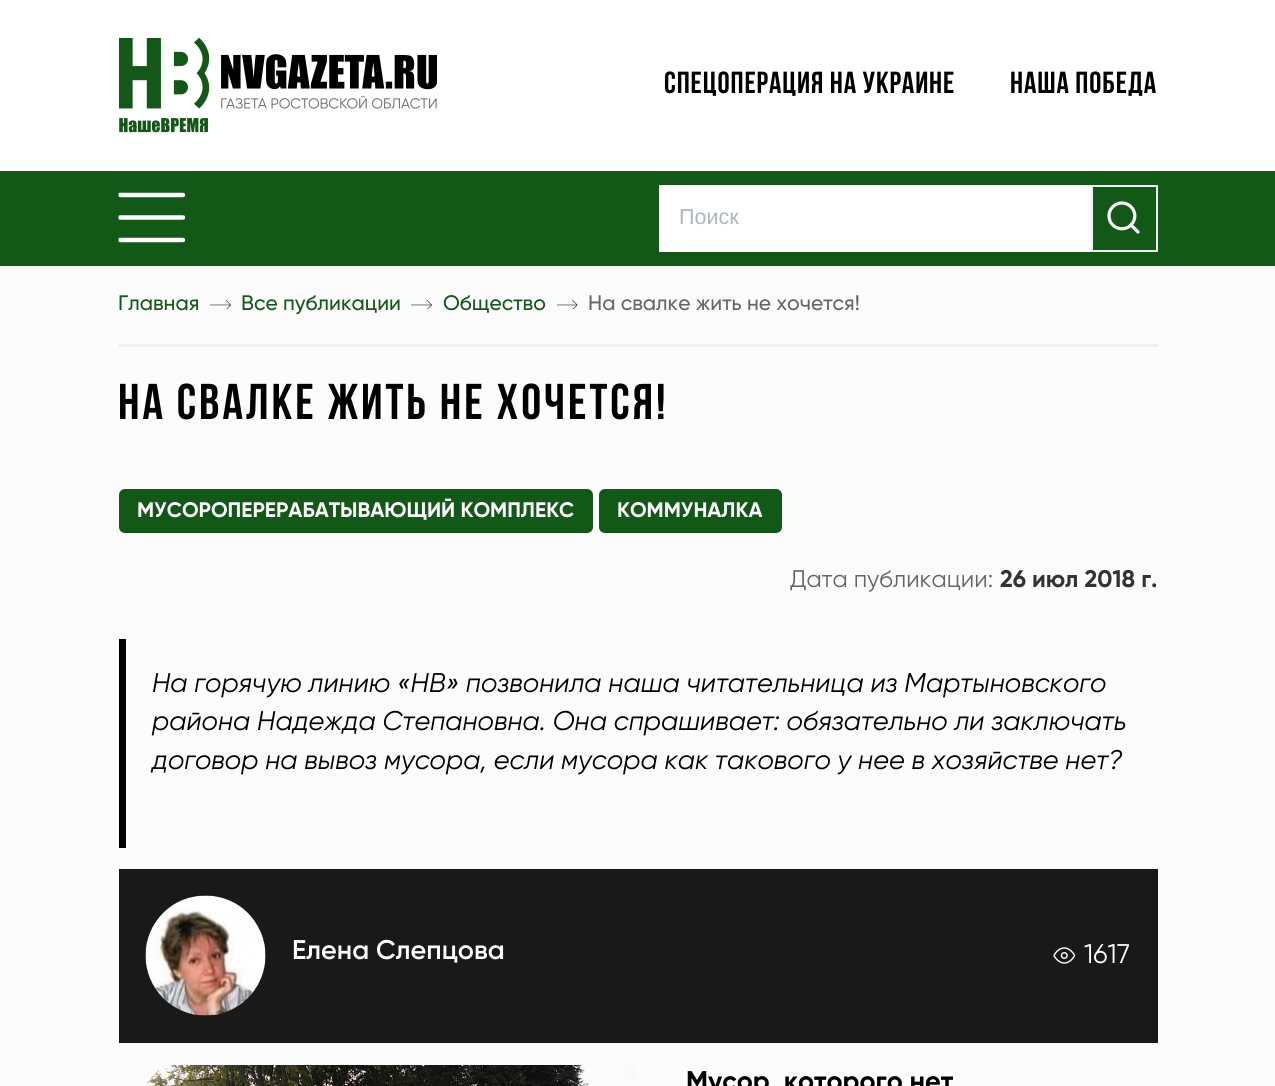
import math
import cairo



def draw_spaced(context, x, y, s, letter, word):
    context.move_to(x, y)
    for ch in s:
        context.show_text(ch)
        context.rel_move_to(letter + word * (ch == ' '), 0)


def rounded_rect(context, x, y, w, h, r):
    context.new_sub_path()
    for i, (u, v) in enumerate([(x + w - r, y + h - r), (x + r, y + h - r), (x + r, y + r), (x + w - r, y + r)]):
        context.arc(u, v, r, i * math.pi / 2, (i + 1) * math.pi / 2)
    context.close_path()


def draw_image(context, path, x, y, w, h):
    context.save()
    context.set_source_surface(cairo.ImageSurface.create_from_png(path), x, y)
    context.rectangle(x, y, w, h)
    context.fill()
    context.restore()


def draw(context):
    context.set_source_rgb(252 / 255, 252 / 255, 252 / 255)
    context.paint()
    context.set_source_rgb(1, 1, 1)
    context.rectangle(0, 0, 1275, 171)
    context.fill()
    draw_image(context, "images/1.png", 119, 38, 318, 95)
    context.set_source_rgb(18 / 255, 88 / 255, 23 / 255)
    context.rectangle(0, 171, 1275, 95)
    context.fill()
    draw_image(context, "images/2.png", 118, 192, 67, 51)
    context.set_source_rgb(1, 1, 1)
    context.rectangle(659, 185, 432, 67)
    context.fill()
    context.rectangle(1092, 186, 65, 65)
    context.set_source_rgb(238 / 255, 240 / 255, 244 / 255)
    context.stroke()
    draw_image(context, "images/3.png", 1107, 201, 33, 33)
    context.rectangle(119, 344, 1039, 3)
    context.fill()
    draw_image(context, "images/4.png", 210, 300, 21, 9)
    draw_image(context, "images/4.png", 411, 300, 21, 9)
    draw_image(context, "images/5.png", 557, 300, 21, 9)
    context.set_source_rgb(18 / 255, 88 / 255, 23 / 255)
    rounded_rect(context, 119, 489, 474, 44, 6)
    context.fill()
    rounded_rect(context, 599, 489, 183, 44, 6)
    context.fill()
    context.set_source_rgb(0, 0, 0)
    context.rectangle(119, 639, 7, 209)
    context.fill()
    context.set_source_rgb(25 / 255, 25 / 255, 25 / 255)
    context.rectangle(119, 869, 1039, 174)
    context.fill()
    draw_image(context, "images/6.png", 145, 895, 121, 121)
    draw_image(context, "images/7.png", 1053, 947, 23, 17)
    draw_image(context, "images/8.png", 146, 1065, 491, 21)
    context.select_font_face("Bebas Neue", cairo.FontSlant.NORMAL, cairo.FontWeight.BOLD)
    context.set_font_size(30.5)
    context.set_source_rgb(0, 0, 0)
    draw_spaced(context, 664, 93, "СПЕЦОПЕРАЦИЯ НА УКРАИНЕ", 0.9, 0)
    draw_spaced(context, 1010, 93, "НАША ПОБЕДА", 0.9, 0)
    context.select_font_face("Liberation Sans")
    context.set_font_size(21.5)
    context.set_source_rgb(173 / 255, 181 / 255, 189 / 255)
    context.move_to(679, 224)
    context.show_text("Поиск")
    context.select_font_face("Gilroy Medium")
    context.set_font_size(21)
    context.set_source_rgb(18 / 255, 88 / 255, 23 / 255)
    context.move_to(118, 310)
    context.show_text("Главная")
    context.move_to(241, 310)
    context.show_text("Все публикации")
    context.move_to(443, 310)
    context.show_text("Общество")
    context.set_source_rgb(102 / 255, 102 / 255, 102 / 255)
    context.move_to(588, 310)
    context.show_text("На свалке жить не хочется!")
    context.select_font_face("Bebas Neue", cairo.FontSlant.NORMAL, cairo.FontWeight.BOLD)
    context.set_font_size(50.25)
    context.set_source_rgb(0, 0, 0)
    draw_spaced(context, 118, 419, "На свалке жить не хочется!", 3, 0)
    context.select_font_face("Gilroy", cairo.FontSlant.NORMAL, cairo.FontWeight.BOLD)
    context.set_font_size(21)
    context.set_source_rgb(1, 1, 1)
    context.move_to(137, 517)
    context.show_text("МУСОРОПЕРЕРАБАТЫВАЮЩИЙ КОМПЛЕКС")
    context.move_to(617, 517)
    context.show_text("КОММУНАЛКА")
    context.select_font_face("Gilroy")
    context.set_font_size(24)
    context.set_source_rgb(102 / 255, 102 / 255, 102 / 255)
    context.move_to(790, 587)
    context.show_text("Дата публикации:")
    context.select_font_face("Gilroy", cairo.FontSlant.NORMAL, cairo.FontWeight.BOLD)
    context.set_source_rgb(51 / 255, 51 / 255, 51 / 255)
    context.move_to(1000, 587)
    context.show_text("26 июл 2018 г.")
    context.select_font_face("Gilroy", cairo.FontSlant.ITALIC)
    context.set_font_size(27)
    context.set_source_rgb(0, 0, 0)
    context.move_to(152, 692)
    context.show_text("На горячую линию «НВ» позвонила наша читательница из Мартыновского")
    context.move_to(152, 730)
    context.show_text("района Надежда Степановна. Она спрашивает: обязательно ли заключать")
    context.move_to(152, 769)
    context.show_text("договор на вывоз мусора, если мусора как такового у нее в хозяйстве нет?")
    context.select_font_face("Gilroy SemiBold")
    context.set_source_rgb(1, 1, 1)
    context.move_to(292, 959)
    context.show_text("Елена Слепцова")
    context.select_font_face("Gilroy")
    context.move_to(1084, 963)
    context.show_text("1617")
    context.select_font_face("Gilroy", cairo.FontSlant.NORMAL, cairo.FontWeight.BOLD)
    context.set_source_rgb(0, 0, 0)
    context.move_to(686, 1090)
    context.show_text("Мусор, которого нет")


surface = cairo.ImageSurface(cairo.Format.RGB24, 1275, 1086)
context = cairo.Context(surface)
options = cairo.FontOptions()
options.set_hint_metrics(cairo.HintMetrics.OFF)
options.set_hint_style(cairo.HintStyle.NONE)
context.set_font_options(options)
context.set_miter_limit(4)
draw(context)
surface.write_to_png("out.png")
